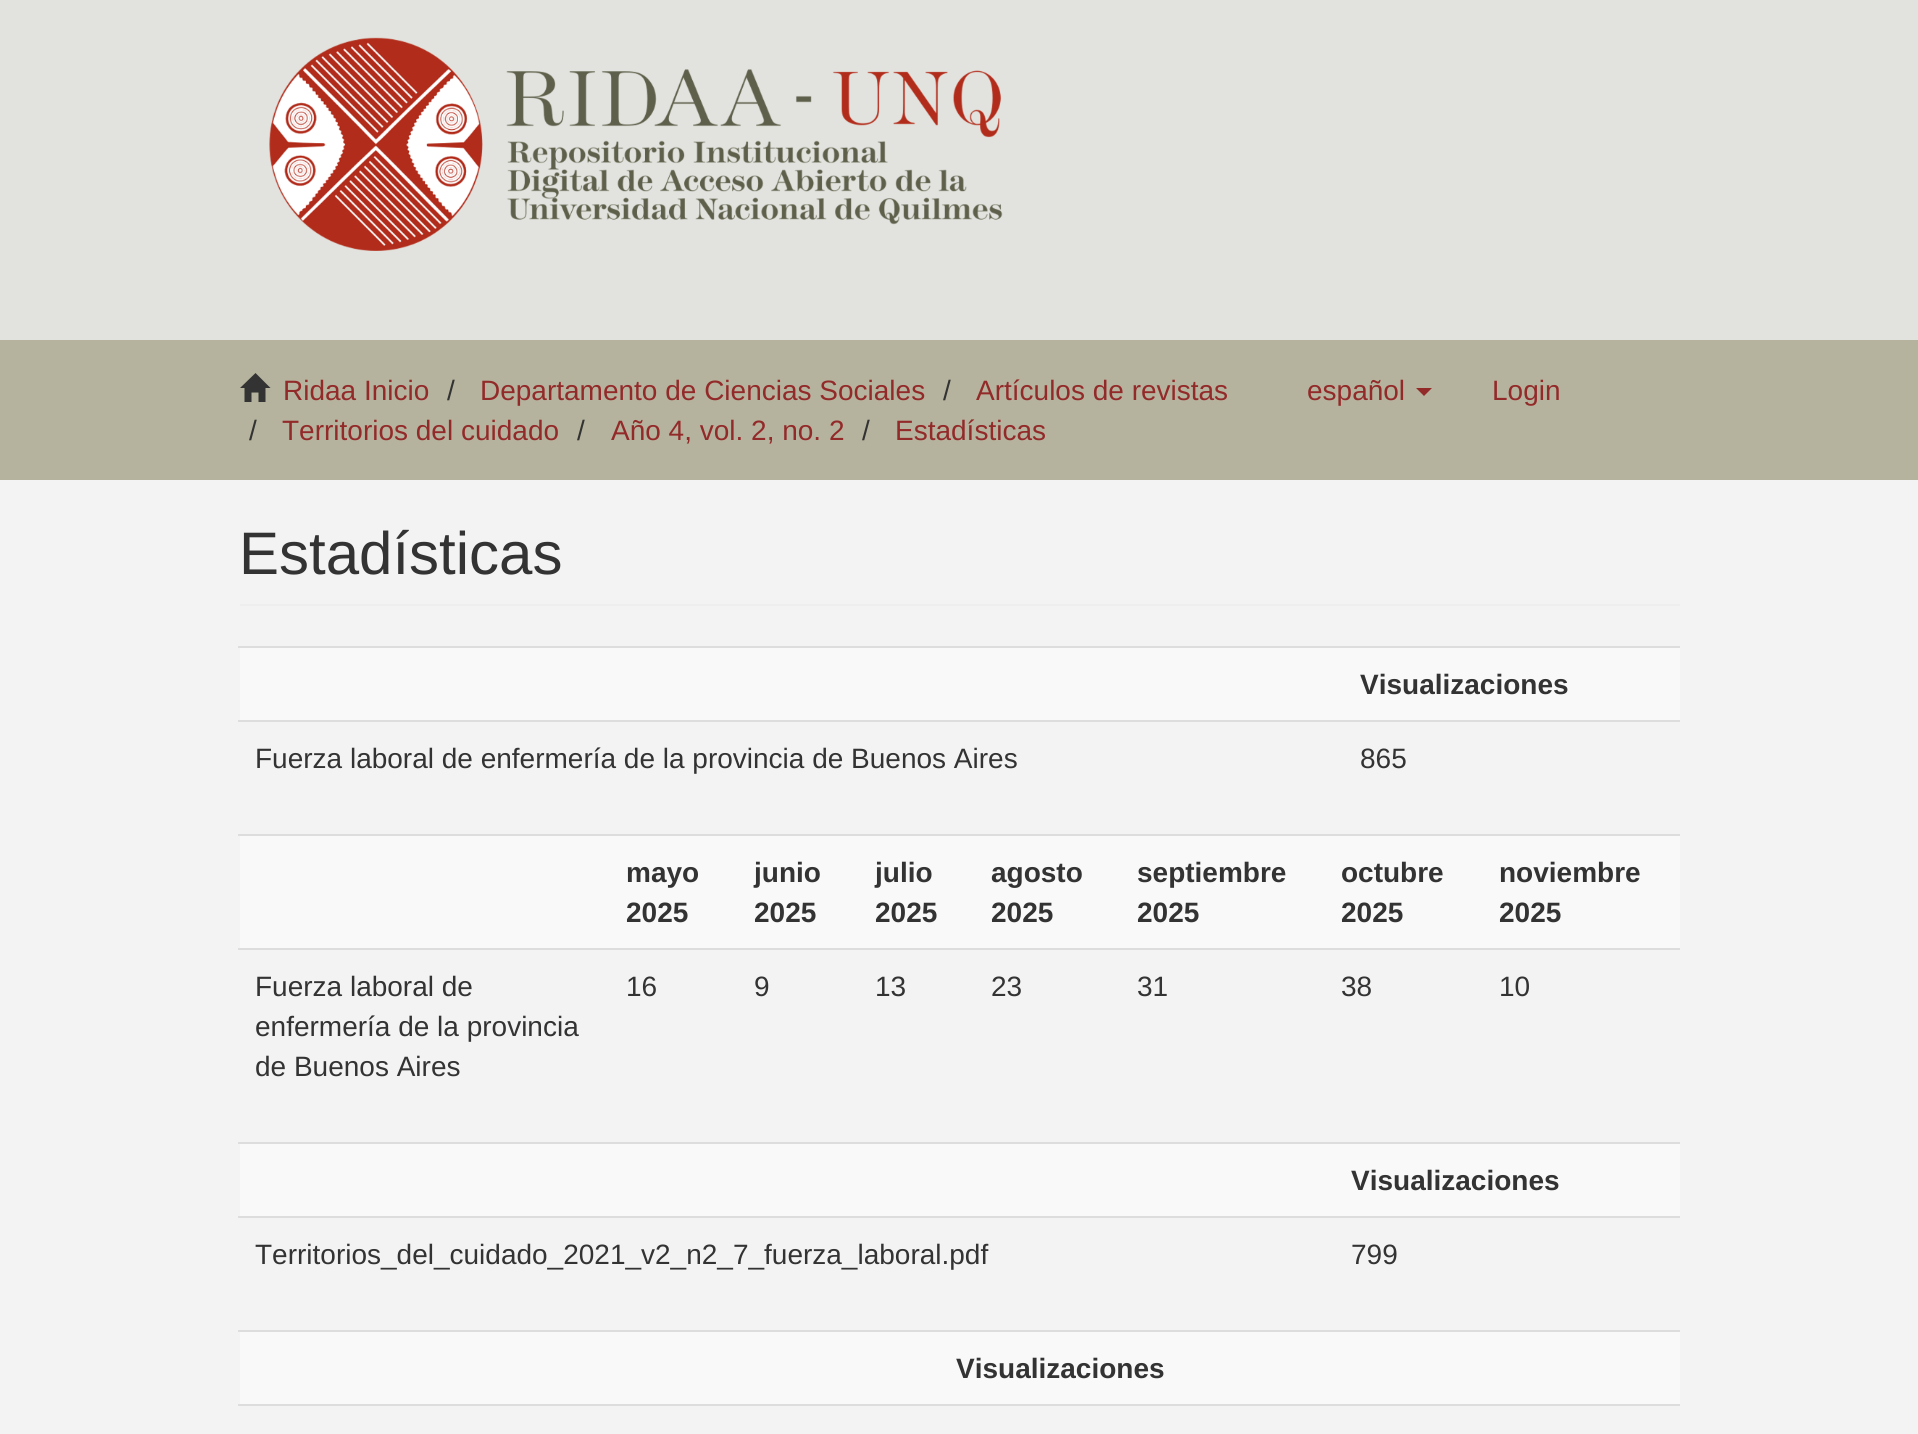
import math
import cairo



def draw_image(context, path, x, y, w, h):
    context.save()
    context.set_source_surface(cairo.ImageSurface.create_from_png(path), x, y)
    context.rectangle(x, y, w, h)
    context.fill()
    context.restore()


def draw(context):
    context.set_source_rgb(243 / 255, 243 / 255, 244 / 255)
    context.paint()
    context.set_source_rgb(226 / 255, 227 / 255, 222 / 255)
    context.rectangle(0, 0, 1918, 340)
    context.fill()
    draw_image(context, "images/1.png", 269, 37, 734, 214)
    context.set_source_rgb(181 / 255, 179 / 255, 157 / 255)
    context.rectangle(0, 340, 1918, 140)
    context.fill()
    context.set_source_rgb(51 / 255, 51 / 255, 51 / 255)
    context.new_path()
    context.move_to(240, 388)
    context.line_to(255.5, 373)
    context.line_to(270.5, 388)
    context.line_to(265.5, 388)
    context.line_to(265.5, 402)
    context.line_to(258.5, 402)
    context.line_to(258.5, 392.5)
    context.line_to(251.5, 392.5)
    context.line_to(251.5, 402)
    context.line_to(244.5, 402)
    context.line_to(244.5, 388)
    context.close_path()
    context.fill()
    context.set_source_rgb(147 / 255, 42 / 255, 42 / 255)
    context.new_path()
    context.move_to(1416, 388)
    context.line_to(1432, 388)
    context.line_to(1424, 396)
    context.close_path()
    context.fill()
    context.set_source_rgb(238 / 255, 238 / 255, 238 / 255)
    context.rectangle(240, 604, 1440, 2)
    context.fill()
    context.set_source_rgb(249 / 255, 249 / 255, 249 / 255)
    context.rectangle(240, 648, 1440, 72)
    context.fill()
    context.set_source_rgb(221 / 255, 221 / 255, 221 / 255)
    context.rectangle(238, 646, 1442, 2)
    context.fill()
    context.rectangle(238, 720, 1442, 2)
    context.fill()
    context.set_source_rgb(249 / 255, 249 / 255, 249 / 255)
    context.rectangle(240, 836, 1440, 112)
    context.fill()
    context.set_source_rgb(221 / 255, 221 / 255, 221 / 255)
    context.rectangle(238, 834, 1442, 2)
    context.fill()
    context.rectangle(238, 948, 1442, 2)
    context.fill()
    context.set_source_rgb(249 / 255, 249 / 255, 249 / 255)
    context.rectangle(240, 1144, 1440, 72)
    context.fill()
    context.set_source_rgb(221 / 255, 221 / 255, 221 / 255)
    context.rectangle(238, 1142, 1442, 2)
    context.fill()
    context.rectangle(238, 1216, 1442, 2)
    context.fill()
    context.set_source_rgb(249 / 255, 249 / 255, 249 / 255)
    context.rectangle(240, 1332, 1440, 72)
    context.fill()
    context.set_source_rgb(221 / 255, 221 / 255, 221 / 255)
    context.rectangle(238, 1330, 1442, 2)
    context.fill()
    context.rectangle(238, 1404, 1442, 2)
    context.fill()
    context.select_font_face("Liberation Sans")
    context.set_font_size(28)
    context.set_source_rgb(147 / 255, 42 / 255, 42 / 255)
    context.move_to(283, 400)
    context.show_text("Ridaa Inicio")
    context.set_source_rgb(51 / 255, 51 / 255, 51 / 255)
    context.move_to(447, 400)
    context.show_text("/")
    context.set_source_rgb(147 / 255, 42 / 255, 42 / 255)
    context.move_to(480, 400)
    context.show_text("Departamento de Ciencias Sociales")
    context.set_source_rgb(51 / 255, 51 / 255, 51 / 255)
    context.move_to(943, 400)
    context.show_text("/")
    context.set_source_rgb(147 / 255, 42 / 255, 42 / 255)
    context.move_to(976, 400)
    context.show_text("Artículos de revistas")
    context.set_source_rgb(51 / 255, 51 / 255, 51 / 255)
    context.move_to(249, 440)
    context.show_text("/")
    context.set_source_rgb(147 / 255, 42 / 255, 42 / 255)
    context.move_to(282, 440)
    context.show_text("Territorios del cuidado")
    context.set_source_rgb(51 / 255, 51 / 255, 51 / 255)
    context.move_to(577, 440)
    context.show_text("/")
    context.set_source_rgb(147 / 255, 42 / 255, 42 / 255)
    context.move_to(611, 440)
    context.show_text("Año 4, vol. 2, no. 2")
    context.set_source_rgb(51 / 255, 51 / 255, 51 / 255)
    context.move_to(862, 440)
    context.show_text("/")
    context.set_source_rgb(147 / 255, 42 / 255, 42 / 255)
    context.move_to(895, 440)
    context.show_text("Estadísticas")
    context.move_to(1307, 400)
    context.show_text("español")
    context.move_to(1492, 400)
    context.show_text("Login")
    context.set_font_size(60)
    context.set_source_rgb(51 / 255, 51 / 255, 51 / 255)
    context.move_to(239, 574)
    context.show_text("Estadísticas")
    context.select_font_face("Liberation Sans", cairo.FontSlant.NORMAL, cairo.FontWeight.BOLD)
    context.set_font_size(28)
    context.move_to(1360, 694)
    context.show_text("Visualizaciones")
    context.select_font_face("Liberation Sans")
    context.move_to(255, 768)
    context.show_text("Fuerza laboral de enfermería de la provincia de Buenos Aires")
    context.move_to(1360, 768)
    context.show_text("865")
    context.select_font_face("Liberation Sans", cairo.FontSlant.NORMAL, cairo.FontWeight.BOLD)
    context.move_to(626, 882)
    context.show_text("mayo")
    context.move_to(626, 922)
    context.show_text("2025")
    context.move_to(754, 882)
    context.show_text("junio")
    context.move_to(754, 922)
    context.show_text("2025")
    context.move_to(875, 882)
    context.show_text("julio")
    context.move_to(875, 922)
    context.show_text("2025")
    context.move_to(991, 882)
    context.show_text("agosto")
    context.move_to(991, 922)
    context.show_text("2025")
    context.move_to(1137, 882)
    context.show_text("septiembre")
    context.move_to(1137, 922)
    context.show_text("2025")
    context.move_to(1341, 882)
    context.show_text("octubre")
    context.move_to(1341, 922)
    context.show_text("2025")
    context.move_to(1499, 882)
    context.show_text("noviembre")
    context.move_to(1499, 922)
    context.show_text("2025")
    context.select_font_face("Liberation Sans")
    context.move_to(255, 996)
    context.show_text("Fuerza laboral de")
    context.move_to(255, 1036)
    context.show_text("enfermería de la provincia")
    context.move_to(255, 1076)
    context.show_text("de Buenos Aires")
    context.move_to(626, 996)
    context.show_text("16")
    context.move_to(754, 996)
    context.show_text("9")
    context.move_to(875, 996)
    context.show_text("13")
    context.move_to(991, 996)
    context.show_text("23")
    context.move_to(1137, 996)
    context.show_text("31")
    context.move_to(1341, 996)
    context.show_text("38")
    context.move_to(1499, 996)
    context.show_text("10")
    context.select_font_face("Liberation Sans", cairo.FontSlant.NORMAL, cairo.FontWeight.BOLD)
    context.move_to(1351, 1190)
    context.show_text("Visualizaciones")
    context.select_font_face("Liberation Sans")
    context.move_to(255, 1264)
    context.show_text("Territorios_del_cuidado_2021_v2_n2_7_fuerza_laboral.pdf")
    context.move_to(1351, 1264)
    context.show_text("799")
    context.select_font_face("Liberation Sans", cairo.FontSlant.NORMAL, cairo.FontWeight.BOLD)
    context.move_to(956, 1378)
    context.show_text("Visualizaciones")


surface = cairo.ImageSurface(cairo.Format.RGB24, 1918, 1434)
context = cairo.Context(surface)
options = cairo.FontOptions()
options.set_hint_metrics(cairo.HintMetrics.OFF)
options.set_hint_style(cairo.HintStyle.NONE)
context.set_font_options(options)
context.set_miter_limit(4)
draw(context)
surface.write_to_png("out.png")
